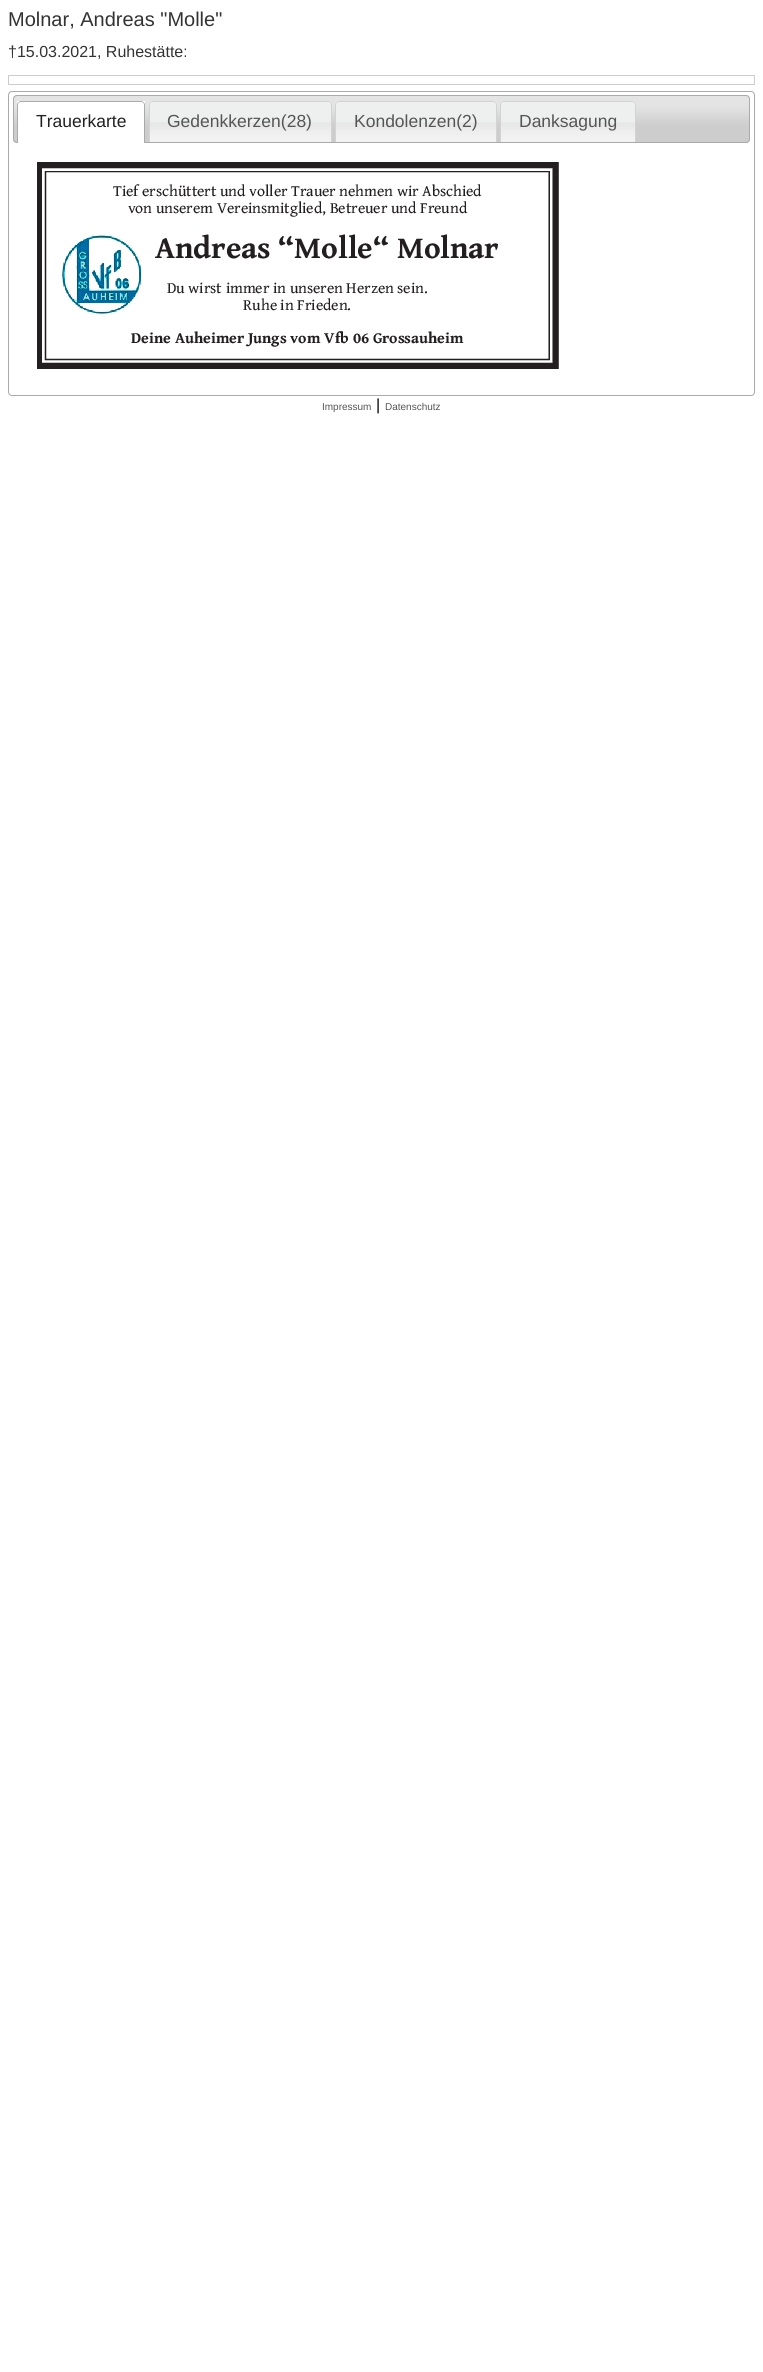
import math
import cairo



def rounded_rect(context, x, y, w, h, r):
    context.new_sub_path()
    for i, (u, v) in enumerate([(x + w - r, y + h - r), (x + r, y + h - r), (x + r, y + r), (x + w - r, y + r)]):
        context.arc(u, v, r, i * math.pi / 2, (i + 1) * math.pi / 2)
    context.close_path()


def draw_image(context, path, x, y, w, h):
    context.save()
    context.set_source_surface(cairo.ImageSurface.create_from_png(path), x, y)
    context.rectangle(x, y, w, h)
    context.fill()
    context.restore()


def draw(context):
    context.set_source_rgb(1, 1, 1)
    context.paint()
    context.rectangle(8.5, 75.5, 746, 9)
    context.set_source_rgb(204 / 255, 204 / 255, 204 / 255)
    context.set_line_width(1)
    context.stroke()
    rounded_rect(context, 8.5, 91.5, 746, 304, 3.5)
    context.set_source_rgb(170 / 255, 170 / 255, 170 / 255)
    context.stroke()
    draw_image(context, "images/1.png", 13, 95, 737, 48)
    rounded_rect(context, 13.5, 95.5, 736, 47, 3.5)
    context.stroke()
    context.set_source_rgb(1, 1, 1)
    context.rectangle(17, 101, 128, 42)
    context.fill()
    context.set_source_rgb(170 / 255, 170 / 255, 170 / 255)
    context.set_fill_rule(cairo.FillRule.EVEN_ODD)
    context.new_path()
    context.move_to(21, 101)
    context.line_to(141, 101)
    context.curve_to(143, 101, 145, 103, 145, 105)
    context.line_to(145, 143)
    context.line_to(17, 143)
    context.line_to(17, 105)
    context.curve_to(17, 103, 19, 101, 21, 101)
    context.close_path()
    context.move_to(21, 102)
    context.line_to(141, 102)
    context.curve_to(143, 102, 144, 103, 144, 105)
    context.line_to(144, 143)
    context.line_to(18, 143)
    context.line_to(18, 105)
    context.curve_to(18, 103, 19, 102, 21, 102)
    context.close_path()
    context.fill()
    draw_image(context, "images/2.png", 149, 101, 183, 41)
    context.set_source_rgb(211 / 255, 211 / 255, 211 / 255)
    context.new_path()
    context.move_to(153, 101)
    context.line_to(328, 101)
    context.curve_to(330, 101, 332, 103, 332, 105)
    context.line_to(332, 142)
    context.line_to(149, 142)
    context.line_to(149, 105)
    context.curve_to(149, 103, 151, 101, 153, 101)
    context.close_path()
    context.move_to(153, 102)
    context.line_to(328, 102)
    context.curve_to(330, 102, 331, 103, 331, 105)
    context.line_to(331, 142)
    context.line_to(150, 142)
    context.line_to(150, 105)
    context.curve_to(150, 103, 151, 102, 153, 102)
    context.close_path()
    context.fill()
    draw_image(context, "images/3.png", 335, 101, 162, 41)
    context.new_path()
    context.move_to(339, 101)
    context.line_to(493, 101)
    context.curve_to(495, 101, 497, 103, 497, 105)
    context.line_to(497, 142)
    context.line_to(335, 142)
    context.line_to(335, 105)
    context.curve_to(335, 103, 337, 101, 339, 101)
    context.close_path()
    context.move_to(339, 102)
    context.line_to(493, 102)
    context.curve_to(495, 102, 496, 103, 496, 105)
    context.line_to(496, 142)
    context.line_to(336, 142)
    context.line_to(336, 105)
    context.curve_to(336, 103, 337, 102, 339, 102)
    context.close_path()
    context.fill()
    draw_image(context, "images/4.png", 500, 101, 136, 41)
    context.new_path()
    context.move_to(504, 101)
    context.line_to(632, 101)
    context.curve_to(634, 101, 636, 103, 636, 105)
    context.line_to(636, 142)
    context.line_to(500, 142)
    context.line_to(500, 105)
    context.curve_to(500, 103, 502, 101, 504, 101)
    context.close_path()
    context.move_to(504, 102)
    context.line_to(632, 102)
    context.curve_to(634, 102, 635, 103, 635, 105)
    context.line_to(635, 142)
    context.line_to(501, 142)
    context.line_to(501, 105)
    context.curve_to(501, 103, 502, 102, 504, 102)
    context.close_path()
    context.fill()
    draw_image(context, "images/5.png", 37, 162, 522, 207)
    context.select_font_face("Liberation Sans")
    context.set_font_size(20)
    context.set_source_rgb(51 / 255, 51 / 255, 51 / 255)
    context.move_to(8, 26)
    context.show_text("Molnar, Andreas \"Molle\"")
    context.set_font_size(16)
    context.move_to(8, 57)
    context.show_text("†15.03.2021, Ruhestätte:")
    context.set_font_size(17.5)
    context.set_source_rgb(33 / 255, 33 / 255, 33 / 255)
    context.move_to(36, 127)
    context.show_text("Trauerkarte")
    context.set_source_rgb(85 / 255, 85 / 255, 85 / 255)
    context.move_to(167, 127)
    context.show_text("Gedenkkerzen(28)")
    context.move_to(354, 127)
    context.show_text("Kondolenzen(2)")
    context.move_to(519, 127)
    context.show_text("Danksagung")
    context.set_font_size(10)
    context.move_to(322, 410)
    context.show_text("Impressum")
    context.set_font_size(16)
    context.set_source_rgb(0, 0, 0)
    context.move_to(376, 410)
    context.show_text("|")
    context.set_font_size(10)
    context.set_source_rgb(85 / 255, 85 / 255, 85 / 255)
    context.move_to(385, 410)
    context.show_text("Datenschutz")


surface = cairo.ImageSurface(cairo.Format.RGB24, 763, 2372)
context = cairo.Context(surface)
options = cairo.FontOptions()
options.set_hint_metrics(cairo.HintMetrics.OFF)
options.set_hint_style(cairo.HintStyle.NONE)
context.set_font_options(options)
context.set_miter_limit(4)
draw(context)
surface.write_to_png("out.png")
